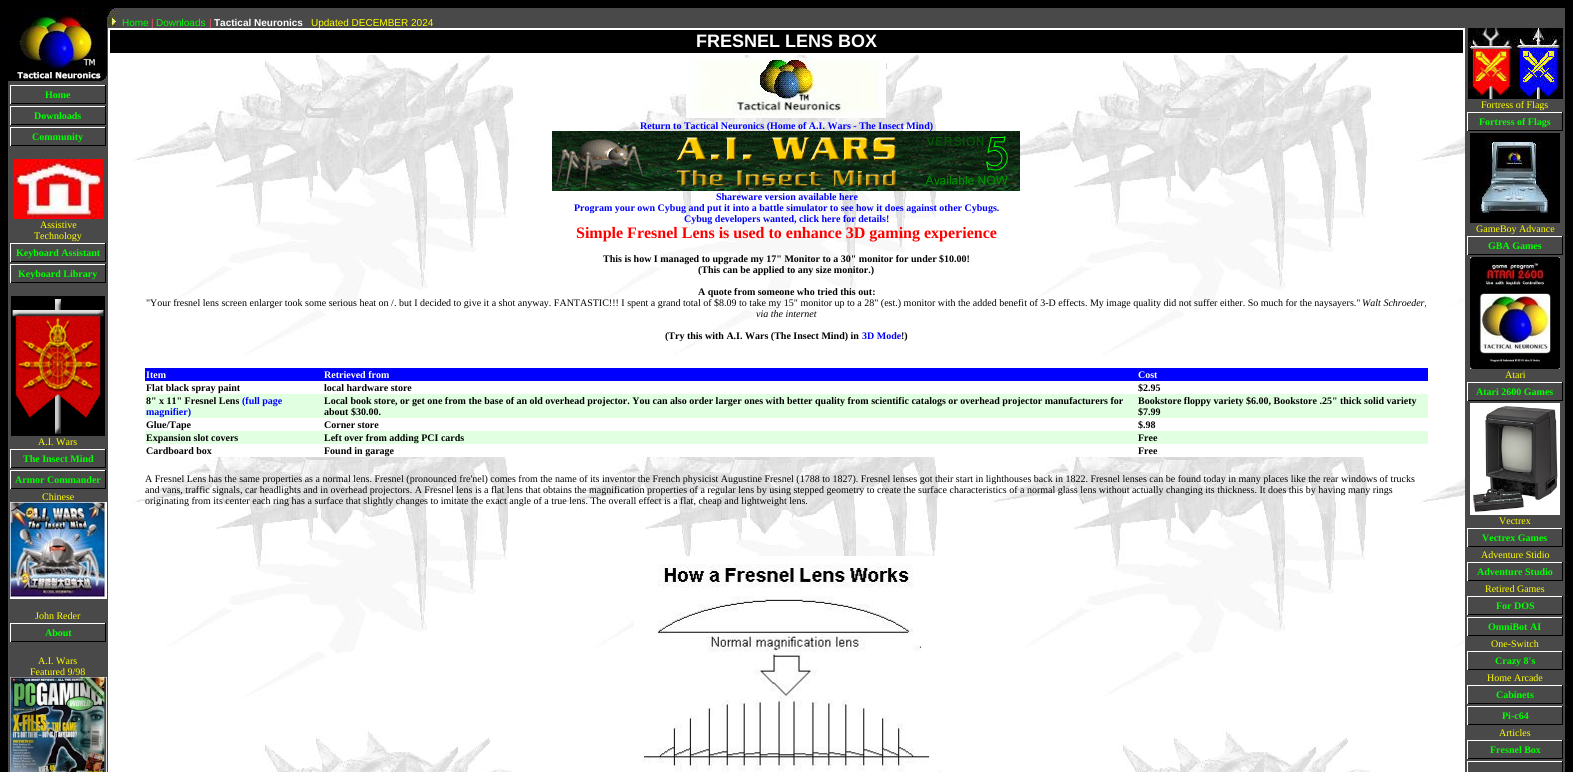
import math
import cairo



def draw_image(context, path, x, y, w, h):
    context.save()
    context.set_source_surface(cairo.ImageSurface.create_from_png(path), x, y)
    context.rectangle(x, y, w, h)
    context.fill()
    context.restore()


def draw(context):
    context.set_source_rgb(0, 0, 0)
    context.paint()
    context.set_source_rgb(73 / 255, 73 / 255, 73 / 255)
    context.rectangle(8, 8, 1557, 764)
    context.fill()
    draw_image(context, "images/1.png", 8, 8, 100, 75)
    context.set_source_rgb(1, 1, 1)
    context.rectangle(10, 85, 96, 1)
    context.fill()
    context.set_source_rgb(0, 0, 0)
    context.rectangle(105, 85, 1, 19)
    context.fill()
    context.rectangle(10, 103, 96, 1)
    context.fill()
    context.set_source_rgb(1, 1, 1)
    context.rectangle(10, 85, 1, 19)
    context.fill()
    context.rectangle(10, 106, 96, 1)
    context.fill()
    context.set_source_rgb(0, 0, 0)
    context.rectangle(105, 106, 1, 19)
    context.fill()
    context.rectangle(10, 124, 96, 1)
    context.fill()
    context.set_source_rgb(1, 1, 1)
    context.rectangle(10, 106, 1, 19)
    context.fill()
    context.rectangle(10, 127, 96, 1)
    context.fill()
    context.set_source_rgb(0, 0, 0)
    context.rectangle(105, 127, 1, 19)
    context.fill()
    context.rectangle(10, 145, 96, 1)
    context.fill()
    context.set_source_rgb(1, 1, 1)
    context.rectangle(10, 127, 1, 19)
    context.fill()
    draw_image(context, "images/2.png", 13, 159, 90, 60)
    context.rectangle(10, 243, 96, 1)
    context.fill()
    context.set_source_rgb(0, 0, 0)
    context.rectangle(105, 243, 1, 19)
    context.fill()
    context.rectangle(10, 261, 96, 1)
    context.fill()
    context.set_source_rgb(1, 1, 1)
    context.rectangle(10, 243, 1, 19)
    context.fill()
    context.rectangle(10, 264, 96, 1)
    context.fill()
    context.set_source_rgb(0, 0, 0)
    context.rectangle(105, 264, 1, 19)
    context.fill()
    context.rectangle(10, 282, 96, 1)
    context.fill()
    context.set_source_rgb(1, 1, 1)
    context.rectangle(10, 264, 1, 19)
    context.fill()
    draw_image(context, "images/3.png", 11, 296, 94, 140)
    context.rectangle(10, 449, 96, 1)
    context.fill()
    context.set_source_rgb(0, 0, 0)
    context.rectangle(105, 449, 1, 19)
    context.fill()
    context.rectangle(10, 467, 96, 1)
    context.fill()
    context.set_source_rgb(1, 1, 1)
    context.rectangle(10, 449, 1, 19)
    context.fill()
    context.rectangle(10, 470, 96, 1)
    context.fill()
    context.set_source_rgb(0, 0, 0)
    context.rectangle(105, 470, 1, 19)
    context.fill()
    context.rectangle(10, 488, 96, 1)
    context.fill()
    context.set_source_rgb(1, 1, 1)
    context.rectangle(10, 470, 1, 19)
    context.fill()
    draw_image(context, "images/4.png", 10, 502, 97, 97)
    context.rectangle(10, 623, 96, 1)
    context.fill()
    context.set_source_rgb(0, 0, 0)
    context.rectangle(105, 623, 1, 19)
    context.fill()
    context.rectangle(10, 641, 96, 1)
    context.fill()
    context.set_source_rgb(1, 1, 1)
    context.rectangle(10, 623, 1, 19)
    context.fill()
    draw_image(context, "images/5.png", 10, 677, 97, 95)
    draw_image(context, "images/6.png", 108, 8, 8, 18)
    draw_image(context, "images/7.png", 108, 55, 1357, 717)
    context.rectangle(108, 28, 1357, 27)
    context.fill()
    context.set_source_rgb(0, 0, 0)
    context.rectangle(110, 30, 1353, 23)
    context.fill()
    draw_image(context, "images/8.png", 686, 58, 200, 60)
    context.set_source_rgb(0, 0, 1)
    context.rectangle(145, 368, 1283, 13)
    context.fill()
    context.set_source_rgb(1, 1, 1)
    context.rectangle(365, 386, 444, 8)
    context.fill()
    context.rectangle(1223, 386, 15, 8)
    context.fill()
    context.set_source_rgb(225 / 255, 1, 225 / 255)
    context.rectangle(145, 394, 1283, 24)
    context.fill()
    context.set_source_rgb(1, 1, 1)
    context.rectangle(268, 418, 1104, 13)
    context.fill()
    context.set_source_rgb(225 / 255, 1, 225 / 255)
    context.rectangle(145, 431, 1283, 13)
    context.fill()
    context.set_source_rgb(1, 1, 1)
    context.rectangle(213, 444, 1161, 13)
    context.fill()
    draw_image(context, "images/10.png", 634, 556, 305, 216)
    draw_image(context, "images/11.png", 1468, 28, 47, 71)
    draw_image(context, "images/12.png", 1515, 28, 48, 71)
    context.rectangle(1467, 112, 96, 1)
    context.fill()
    context.set_source_rgb(0, 0, 0)
    context.rectangle(1562, 112, 1, 19)
    context.fill()
    context.rectangle(1467, 130, 96, 1)
    context.fill()
    context.set_source_rgb(1, 1, 1)
    context.rectangle(1467, 112, 1, 19)
    context.fill()
    draw_image(context, "images/13.png", 1470, 133, 90, 90)
    context.rectangle(1467, 236, 96, 1)
    context.fill()
    context.set_source_rgb(0, 0, 0)
    context.rectangle(1562, 236, 1, 19)
    context.fill()
    context.rectangle(1467, 254, 96, 1)
    context.fill()
    context.set_source_rgb(1, 1, 1)
    context.rectangle(1467, 236, 1, 19)
    context.fill()
    draw_image(context, "images/14.png", 1470, 257, 90, 112)
    context.rectangle(1467, 382, 96, 1)
    context.fill()
    context.set_source_rgb(0, 0, 0)
    context.rectangle(1562, 382, 1, 19)
    context.fill()
    context.rectangle(1467, 400, 96, 1)
    context.fill()
    context.set_source_rgb(1, 1, 1)
    context.rectangle(1467, 382, 1, 19)
    context.fill()
    draw_image(context, "images/15.png", 1470, 403, 90, 112)
    context.rectangle(1467, 528, 96, 1)
    context.fill()
    context.set_source_rgb(0, 0, 0)
    context.rectangle(1562, 528, 1, 19)
    context.fill()
    context.rectangle(1467, 546, 96, 1)
    context.fill()
    context.set_source_rgb(1, 1, 1)
    context.rectangle(1467, 528, 1, 19)
    context.fill()
    context.rectangle(1467, 562, 96, 1)
    context.fill()
    context.set_source_rgb(0, 0, 0)
    context.rectangle(1562, 562, 1, 19)
    context.fill()
    context.rectangle(1467, 580, 96, 1)
    context.fill()
    context.set_source_rgb(1, 1, 1)
    context.rectangle(1467, 562, 1, 19)
    context.fill()
    context.rectangle(1467, 596, 96, 1)
    context.fill()
    context.set_source_rgb(0, 0, 0)
    context.rectangle(1562, 596, 1, 19)
    context.fill()
    context.rectangle(1467, 614, 96, 1)
    context.fill()
    context.set_source_rgb(1, 1, 1)
    context.rectangle(1467, 596, 1, 19)
    context.fill()
    context.rectangle(1467, 617, 96, 1)
    context.fill()
    context.set_source_rgb(0, 0, 0)
    context.rectangle(1562, 617, 1, 19)
    context.fill()
    context.rectangle(1467, 635, 96, 1)
    context.fill()
    context.set_source_rgb(1, 1, 1)
    context.rectangle(1467, 617, 1, 19)
    context.fill()
    context.rectangle(1467, 651, 96, 1)
    context.fill()
    context.set_source_rgb(0, 0, 0)
    context.rectangle(1562, 651, 1, 19)
    context.fill()
    context.rectangle(1467, 669, 96, 1)
    context.fill()
    context.set_source_rgb(1, 1, 1)
    context.rectangle(1467, 651, 1, 19)
    context.fill()
    context.rectangle(1467, 685, 96, 1)
    context.fill()
    context.set_source_rgb(0, 0, 0)
    context.rectangle(1562, 685, 1, 19)
    context.fill()
    context.rectangle(1467, 703, 96, 1)
    context.fill()
    context.set_source_rgb(1, 1, 1)
    context.rectangle(1467, 685, 1, 19)
    context.fill()
    context.rectangle(1467, 706, 96, 1)
    context.fill()
    context.set_source_rgb(0, 0, 0)
    context.rectangle(1562, 706, 1, 19)
    context.fill()
    context.rectangle(1467, 724, 96, 1)
    context.fill()
    context.set_source_rgb(1, 1, 1)
    context.rectangle(1467, 706, 1, 19)
    context.fill()
    context.rectangle(1467, 740, 96, 1)
    context.fill()
    context.set_source_rgb(0, 0, 0)
    context.rectangle(1562, 740, 1, 19)
    context.fill()
    context.rectangle(1467, 758, 96, 1)
    context.fill()
    context.set_source_rgb(1, 1, 1)
    context.rectangle(1467, 740, 1, 19)
    context.fill()
    context.rectangle(1467, 761, 96, 1)
    context.fill()
    context.set_source_rgb(0, 0, 0)
    context.rectangle(1562, 761, 1, 11)
    context.fill()
    context.set_source_rgb(1, 1, 1)
    context.rectangle(1467, 761, 1, 11)
    context.fill()
    context.select_font_face("Liberation Serif", cairo.FontSlant.NORMAL, cairo.FontWeight.BOLD)
    context.set_font_size(10)
    context.set_source_rgb(0, 1, 0)
    context.move_to(45, 98)
    context.show_text("Home")
    context.move_to(34, 119)
    context.show_text("Downloads")
    context.move_to(32, 140)
    context.show_text("Community")
    context.select_font_face("Liberation Serif")
    context.set_source_rgb(1, 1, 0)
    context.move_to(40, 228)
    context.show_text("Assistive")
    context.move_to(34, 239)
    context.show_text("Technology")
    context.select_font_face("Liberation Serif", cairo.FontSlant.NORMAL, cairo.FontWeight.BOLD)
    context.set_source_rgb(0, 1, 0)
    context.move_to(16, 256)
    context.show_text("Keyboard Assistant")
    context.move_to(18, 277)
    context.show_text("Keyboard Library")
    context.select_font_face("Liberation Serif")
    context.set_source_rgb(1, 1, 0)
    context.move_to(38, 445)
    context.show_text("A.I. Wars")
    context.select_font_face("Liberation Serif", cairo.FontSlant.NORMAL, cairo.FontWeight.BOLD)
    context.set_source_rgb(0, 1, 0)
    context.move_to(23, 462)
    context.show_text("The Insect Mind")
    context.move_to(15, 483)
    context.show_text("Armor Commander")
    context.select_font_face("Liberation Serif")
    context.set_source_rgb(1, 1, 0)
    context.move_to(42, 500)
    context.show_text("Chinese")
    context.move_to(35, 619)
    context.show_text("John Reder")
    context.select_font_face("Liberation Serif", cairo.FontSlant.NORMAL, cairo.FontWeight.BOLD)
    context.set_source_rgb(0, 1, 0)
    context.move_to(45, 636)
    context.show_text("About")
    context.select_font_face("Liberation Serif")
    context.set_source_rgb(1, 1, 0)
    context.move_to(38, 664)
    context.show_text("A.I. Wars")
    context.move_to(30, 675)
    context.show_text("Featured 9/98")
    context.select_font_face("Liberation Sans")
    context.set_source_rgb(0, 1, 0)
    context.move_to(122, 26)
    context.show_text("Home")
    context.set_source_rgb(242 / 255, 89 / 255, 85 / 255)
    context.move_to(151, 26)
    context.show_text("|")
    context.set_source_rgb(0, 1, 0)
    context.move_to(156, 26)
    context.show_text("Downloads")
    context.set_source_rgb(242 / 255, 89 / 255, 85 / 255)
    context.move_to(209, 26)
    context.show_text("|")
    context.select_font_face("Liberation Sans", cairo.FontSlant.NORMAL, cairo.FontWeight.BOLD)
    context.set_source_rgb(1, 1, 1)
    context.move_to(214, 26)
    context.show_text("Tactical Neuronics")
    context.select_font_face("Liberation Sans")
    context.set_source_rgb(1, 1, 0)
    context.move_to(311, 26)
    context.show_text("Updated DECEMBER 2024")
    context.select_font_face("Liberation Sans", cairo.FontSlant.NORMAL, cairo.FontWeight.BOLD)
    context.set_font_size(18)
    context.set_source_rgb(1, 1, 1)
    context.move_to(696, 47)
    context.show_text("FRESNEL LENS BOX")
    context.select_font_face("Liberation Serif", cairo.FontSlant.NORMAL, cairo.FontWeight.BOLD)
    context.set_font_size(10)
    context.set_source_rgb(0, 0, 1)
    context.move_to(640, 129)
    context.show_text("Return to Tactical Neuronics (Home of A.I. Wars - The Insect Mind)")
    draw_image(context, "images/9.png", 552, 131, 468, 60)
    context.move_to(716, 200)
    context.show_text("Shareware version available here")
    context.move_to(574, 211)
    context.show_text("Program your own Cybug and put it into a battle simulator to see how it does against other Cybugs.")
    context.move_to(684, 222)
    context.show_text("Cybug developers wanted, click here for details!")
    context.set_font_size(16)
    context.set_source_rgb(1, 0, 0)
    context.move_to(576, 238)
    context.show_text("Simple Fresnel Lens is used to enhance 3D gaming experience")
    context.set_font_size(10)
    context.set_source_rgb(0, 0, 0)
    context.move_to(603, 262)
    context.show_text("This is how I managed to upgrade my 17\" Monitor to a 30\" monitor for under $10.00!")
    context.move_to(698, 273)
    context.show_text("(This can be applied to any size monitor.)")
    context.move_to(698, 295)
    context.show_text("A quote from someone who tried this out:")
    context.select_font_face("Liberation Serif")
    context.move_to(146, 306)
    context.show_text("\"Your fresnel lens screen enlarger took some serious heat on /. but I decided to give it a shot anyway. FANTASTIC!!! I spent a grand total of $8.09 to take my 15\" monitor up to a 28\" (est.) monitor with the added benefit of 3-D effects. My image quality did not suffer either. So much for the naysayers.\"")
    context.select_font_face("Liberation Serif", cairo.FontSlant.ITALIC)
    context.move_to(1362, 306)
    context.show_text("Walt Schroeder,")
    context.move_to(756, 317)
    context.show_text("via the internet")
    context.select_font_face("Liberation Serif", cairo.FontSlant.NORMAL, cairo.FontWeight.BOLD)
    context.move_to(665, 339)
    context.show_text("(Try this with A.I. Wars (The Insect Mind) in")
    context.set_source_rgb(0, 0, 1)
    context.move_to(862, 339)
    context.show_text("3D Mode")
    context.set_source_rgb(0, 0, 0)
    context.move_to(901, 339)
    context.show_text("!)")
    context.set_source_rgb(1, 1, 1)
    context.move_to(146, 378)
    context.show_text("Item")
    context.move_to(324, 378)
    context.show_text("Retrieved from")
    context.move_to(1138, 378)
    context.show_text("Cost")
    context.set_source_rgb(0, 0, 0)
    context.move_to(146, 391)
    context.show_text("Flat black spray paint")
    context.move_to(324, 391)
    context.show_text("local hardware store")
    context.move_to(1138, 391)
    context.show_text("$2.95")
    context.move_to(146, 404)
    context.show_text("8\" x 11\" Fresnel Lens")
    context.set_source_rgb(0, 0, 1)
    context.move_to(242, 404)
    context.show_text("(full page")
    context.move_to(146, 415)
    context.show_text("magnifier)")
    context.set_source_rgb(0, 0, 0)
    context.move_to(324, 404)
    context.show_text("Local book store, or get one from the base of an old overhead projector. You can also order larger ones with better quality from scientific catalogs or overhead projector manufacturers for")
    context.move_to(324, 415)
    context.show_text("about $30.00.")
    context.move_to(1138, 404)
    context.show_text("Bookstore floppy variety $6.00, Bookstore .25\" thick solid variety")
    context.move_to(1138, 415)
    context.show_text("$7.99")
    context.move_to(146, 428)
    context.show_text("Glue/Tape")
    context.move_to(324, 428)
    context.show_text("Corner store")
    context.move_to(1138, 428)
    context.show_text("$.98")
    context.move_to(146, 441)
    context.show_text("Expansion slot covers")
    context.move_to(324, 441)
    context.show_text("Left over from adding PCI cards")
    context.move_to(1138, 441)
    context.show_text("Free")
    context.move_to(146, 454)
    context.show_text("Cardboard box")
    context.move_to(324, 454)
    context.show_text("Found in garage")
    context.move_to(1138, 454)
    context.show_text("Free")
    context.select_font_face("Liberation Serif")
    context.move_to(145, 482)
    context.show_text("A Fresnel Lens has the same properties as a normal lens. Fresnel (pronounced fre'nel) comes from the name of its inventor the French physicist Augustine Fresnel (1788 to 1827). Fresnel lenses got their start in lighthouses back in 1822. Fresnel lenses can be found today in many places like the rear windows of trucks")
    context.move_to(145, 493)
    context.show_text("and vans, traffic signals, car headlights and in overhead projectors. A Fresnel lens is a flat lens that obtains the magnification properties of a regular lens by using stepped geometry to create the surface characteristics of a normal glass lens without actually changing its thickness. It does this by having many rings")
    context.move_to(145, 504)
    context.show_text("originating from its center each ring has a surface that slightly changes to imitate the exact angle of a true lens. The overall effect is a flat, cheap and lightweight lens.")
    context.set_source_rgb(1, 1, 0)
    context.move_to(1481, 108)
    context.show_text("Fortress of Flags")
    context.select_font_face("Liberation Serif", cairo.FontSlant.NORMAL, cairo.FontWeight.BOLD)
    context.set_source_rgb(0, 1, 0)
    context.move_to(1479, 125)
    context.show_text("Fortress of Flags")
    context.select_font_face("Liberation Serif")
    context.set_source_rgb(1, 1, 0)
    context.move_to(1476, 232)
    context.show_text("GameBoy Advance")
    context.select_font_face("Liberation Serif", cairo.FontSlant.NORMAL, cairo.FontWeight.BOLD)
    context.set_source_rgb(0, 1, 0)
    context.move_to(1488, 249)
    context.show_text("GBA Games")
    context.select_font_face("Liberation Serif")
    context.set_source_rgb(1, 1, 0)
    context.move_to(1505, 378)
    context.show_text("Atari")
    context.select_font_face("Liberation Serif", cairo.FontSlant.NORMAL, cairo.FontWeight.BOLD)
    context.set_source_rgb(0, 1, 0)
    context.move_to(1476, 395)
    context.show_text("Atari 2600 Games")
    context.select_font_face("Liberation Serif")
    context.set_source_rgb(1, 1, 0)
    context.move_to(1499, 524)
    context.show_text("Vectrex")
    context.select_font_face("Liberation Serif", cairo.FontSlant.NORMAL, cairo.FontWeight.BOLD)
    context.set_source_rgb(0, 1, 0)
    context.move_to(1482, 541)
    context.show_text("Vectrex Games")
    context.select_font_face("Liberation Serif")
    context.set_source_rgb(1, 1, 0)
    context.move_to(1481, 558)
    context.show_text("Adventure Stidio")
    context.select_font_face("Liberation Serif", cairo.FontSlant.NORMAL, cairo.FontWeight.BOLD)
    context.set_source_rgb(0, 1, 0)
    context.move_to(1477, 575)
    context.show_text("Adventure Studio")
    context.select_font_face("Liberation Serif")
    context.set_source_rgb(1, 1, 0)
    context.move_to(1485, 592)
    context.show_text("Retired Games")
    context.select_font_face("Liberation Serif", cairo.FontSlant.NORMAL, cairo.FontWeight.BOLD)
    context.set_source_rgb(0, 1, 0)
    context.move_to(1496, 609)
    context.show_text("For DOS")
    context.move_to(1488, 630)
    context.show_text("OmniBot AI")
    context.select_font_face("Liberation Serif")
    context.set_source_rgb(1, 1, 0)
    context.move_to(1491, 647)
    context.show_text("One-Switch")
    context.select_font_face("Liberation Serif", cairo.FontSlant.NORMAL, cairo.FontWeight.BOLD)
    context.set_source_rgb(0, 1, 0)
    context.move_to(1495, 664)
    context.show_text("Crazy 8's")
    context.select_font_face("Liberation Serif")
    context.set_source_rgb(1, 1, 0)
    context.move_to(1487, 681)
    context.show_text("Home Arcade")
    context.select_font_face("Liberation Serif", cairo.FontSlant.NORMAL, cairo.FontWeight.BOLD)
    context.set_source_rgb(0, 1, 0)
    context.move_to(1496, 698)
    context.show_text("Cabinets")
    context.move_to(1502, 719)
    context.show_text("Pi-c64")
    context.select_font_face("Liberation Serif")
    context.set_source_rgb(1, 1, 0)
    context.move_to(1499, 736)
    context.show_text("Articles")
    context.select_font_face("Liberation Serif", cairo.FontSlant.NORMAL, cairo.FontWeight.BOLD)
    context.set_source_rgb(0, 1, 0)
    context.move_to(1490, 753)
    context.show_text("Fresnel Box")


surface = cairo.ImageSurface(cairo.Format.RGB24, 1573, 772)
context = cairo.Context(surface)
options = cairo.FontOptions()
options.set_hint_metrics(cairo.HintMetrics.OFF)
options.set_hint_style(cairo.HintStyle.NONE)
context.set_font_options(options)
context.set_miter_limit(4)
draw(context)
surface.write_to_png("out.png")
